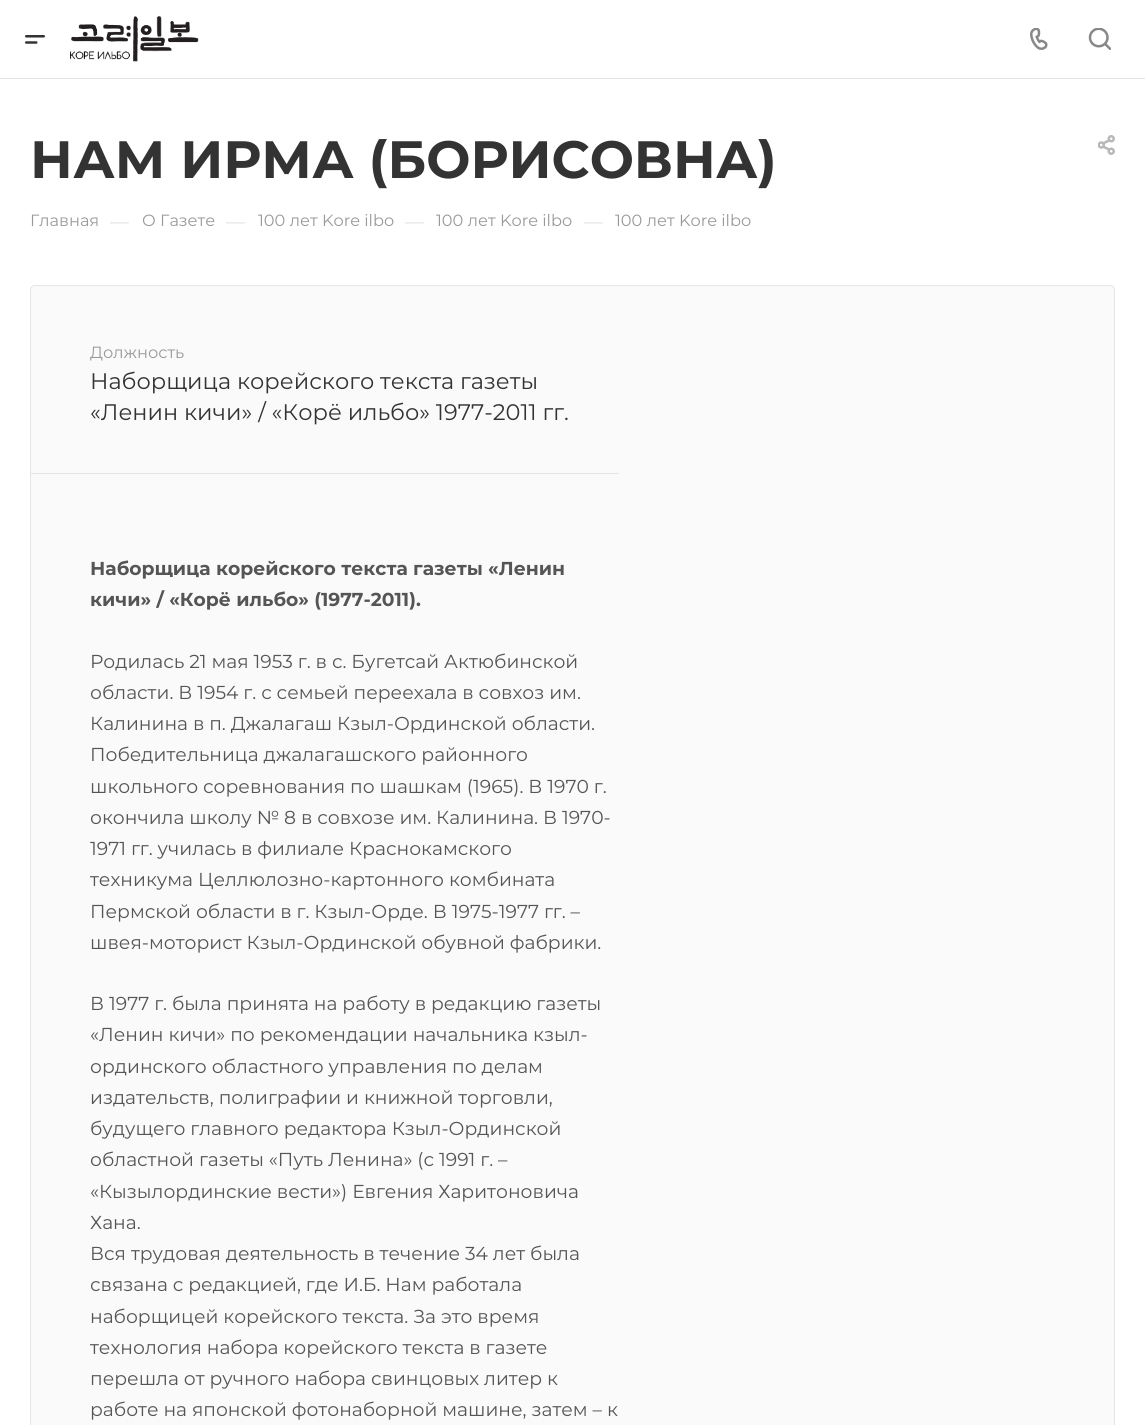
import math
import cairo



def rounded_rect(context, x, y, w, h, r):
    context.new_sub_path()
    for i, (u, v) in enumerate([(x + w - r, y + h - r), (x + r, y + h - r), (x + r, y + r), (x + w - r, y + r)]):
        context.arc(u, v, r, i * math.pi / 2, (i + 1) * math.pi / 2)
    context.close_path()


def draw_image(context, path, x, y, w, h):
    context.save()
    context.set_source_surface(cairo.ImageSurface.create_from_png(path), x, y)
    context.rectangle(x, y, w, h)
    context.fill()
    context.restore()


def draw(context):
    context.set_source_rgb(1, 1, 1)
    context.paint()
    context.set_source_rgb(229 / 255, 229 / 255, 229 / 255)
    context.rectangle(0, 78, 1145, 1)
    context.fill()
    draw_image(context, "images/1.png", 25, 35, 20, 9)
    draw_image(context, "images/2.png", 70, 16, 129, 46)
    draw_image(context, "images/3.png", 1030, 28, 18, 22)
    draw_image(context, "images/4.png", 1088, 28, 23, 22)
    draw_image(context, "images/5.png", 1098, 135, 17, 20)
    context.set_source_rgb(250 / 255, 250 / 255, 250 / 255)
    rounded_rect(context, 30.5, 285.5, 1084, 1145, 4.5)
    context.fill_preserve()
    context.set_source_rgb(229 / 255, 229 / 255, 229 / 255)
    context.set_line_width(1)
    context.stroke()
    context.rectangle(31, 473, 588, 1)
    context.fill()
    context.select_font_face("Montserrat", cairo.FontSlant.NORMAL, cairo.FontWeight.BOLD)
    context.set_font_size(52.5)
    context.set_source_rgb(51 / 255, 51 / 255, 51 / 255)
    context.move_to(30, 178)
    context.show_text("НАМ ИРМА (БОРИСОВНА)")
    context.select_font_face("Montserrat")
    context.set_font_size(16.25)
    context.set_source_rgb(153 / 255, 153 / 255, 153 / 255)
    context.move_to(30, 226)
    context.show_text("Главная")
    context.set_font_size(18.75)
    context.set_source_rgb(221 / 255, 221 / 255, 221 / 255)
    context.move_to(110, 228)
    context.show_text("—")
    context.set_font_size(16.25)
    context.set_source_rgb(153 / 255, 153 / 255, 153 / 255)
    context.move_to(142, 226)
    context.show_text("О Газете")
    context.set_font_size(18.75)
    context.set_source_rgb(221 / 255, 221 / 255, 221 / 255)
    context.move_to(226, 228)
    context.show_text("—")
    context.set_font_size(16.25)
    context.set_source_rgb(153 / 255, 153 / 255, 153 / 255)
    context.move_to(258, 226)
    context.show_text("100 лет Kore ilbo")
    context.set_font_size(18.75)
    context.set_source_rgb(221 / 255, 221 / 255, 221 / 255)
    context.move_to(405, 228)
    context.show_text("—")
    context.set_font_size(16.25)
    context.set_source_rgb(153 / 255, 153 / 255, 153 / 255)
    context.move_to(436, 226)
    context.show_text("100 лет Kore ilbo")
    context.set_font_size(18.75)
    context.set_source_rgb(221 / 255, 221 / 255, 221 / 255)
    context.move_to(584, 228)
    context.show_text("—")
    context.set_font_size(16.25)
    context.set_source_rgb(153 / 255, 153 / 255, 153 / 255)
    context.move_to(615, 226)
    context.show_text("100 лет Kore ilbo")
    context.move_to(90, 358)
    context.show_text("Должность")
    context.set_font_size(22.5)
    context.set_source_rgb(51 / 255, 51 / 255, 51 / 255)
    context.move_to(90, 389)
    context.show_text("Наборщица корейского текста газеты")
    context.move_to(90, 420)
    context.show_text("«Ленин кичи» / «Корё ильбо» 1977-2011 гг.")
    context.select_font_face("Montserrat", cairo.FontSlant.NORMAL, cairo.FontWeight.BOLD)
    context.set_font_size(18.75)
    context.set_source_rgb(85 / 255, 85 / 255, 85 / 255)
    context.move_to(90, 575)
    context.show_text("Наборщица корейского текста газеты «Ленин")
    context.move_to(90, 606)
    context.show_text("кичи» / «Корё ильбо» (1977-2011).")
    context.select_font_face("Montserrat")
    context.move_to(90, 668)
    context.show_text("Родилась 21 мая 1953 г. в с. Бугетсай Актюбинской")
    context.move_to(90, 699)
    context.show_text("области. В 1954 г. с семьей переехала в совхоз им.")
    context.move_to(90, 730)
    context.show_text("Калинина в п. Джалагаш Кзыл-Ординской области.")
    context.move_to(90, 761)
    context.show_text("Победительница джалагашского районного")
    context.move_to(90, 793)
    context.show_text("школьного соревнования по шашкам (1965). В 1970 г.")
    context.move_to(90, 824)
    context.show_text("окончила школу № 8 в совхозе им. Калинина. В 1970-")
    context.move_to(90, 855)
    context.show_text("1971 гг. училась в филиале Краснокамского")
    context.move_to(90, 886)
    context.show_text("техникума Целлюлозно-картонного комбината")
    context.move_to(90, 918)
    context.show_text("Пермской области в г. Кзыл-Орде. В 1975-1977 гг. –")
    context.move_to(90, 949)
    context.show_text("швея-моторист Кзыл-Ординской обувной фабрики.")
    context.move_to(90, 1010)
    context.show_text("В 1977 г. была принята на работу в редакцию газеты")
    context.move_to(90, 1041)
    context.show_text("«Ленин кичи» по рекомендации начальника кзыл-")
    context.move_to(90, 1073)
    context.show_text("ординского областного управления по делам")
    context.move_to(90, 1104)
    context.show_text("издательств, полиграфии и книжной торговли,")
    context.move_to(90, 1135)
    context.show_text("будущего главного редактора Кзыл-Ординской")
    context.move_to(90, 1166)
    context.show_text("областной газеты «Путь Ленина» (с 1991 г. –")
    context.move_to(90, 1198)
    context.show_text("«Кызылординские вести») Евгения Харитоновича")
    context.move_to(90, 1229)
    context.show_text("Хана.")
    context.move_to(90, 1260)
    context.show_text("Вся трудовая деятельность в течение 34 лет была")
    context.move_to(90, 1291)
    context.show_text("связана с редакцией, где И.Б. Нам работала")
    context.move_to(90, 1323)
    context.show_text("наборщицей корейского текста. За это время")
    context.move_to(90, 1354)
    context.show_text("технология набора корейского текста в газете")
    context.move_to(90, 1385)
    context.show_text("перешла от ручного набора свинцовых литер к")
    context.move_to(90, 1416)
    context.show_text("работе на японской фотонаборной машине, затем – к")


surface = cairo.ImageSurface(cairo.Format.RGB24, 1145, 1425)
context = cairo.Context(surface)
options = cairo.FontOptions()
options.set_hint_metrics(cairo.HintMetrics.OFF)
options.set_hint_style(cairo.HintStyle.NONE)
context.set_font_options(options)
context.set_miter_limit(4)
draw(context)
surface.write_to_png("out.png")
